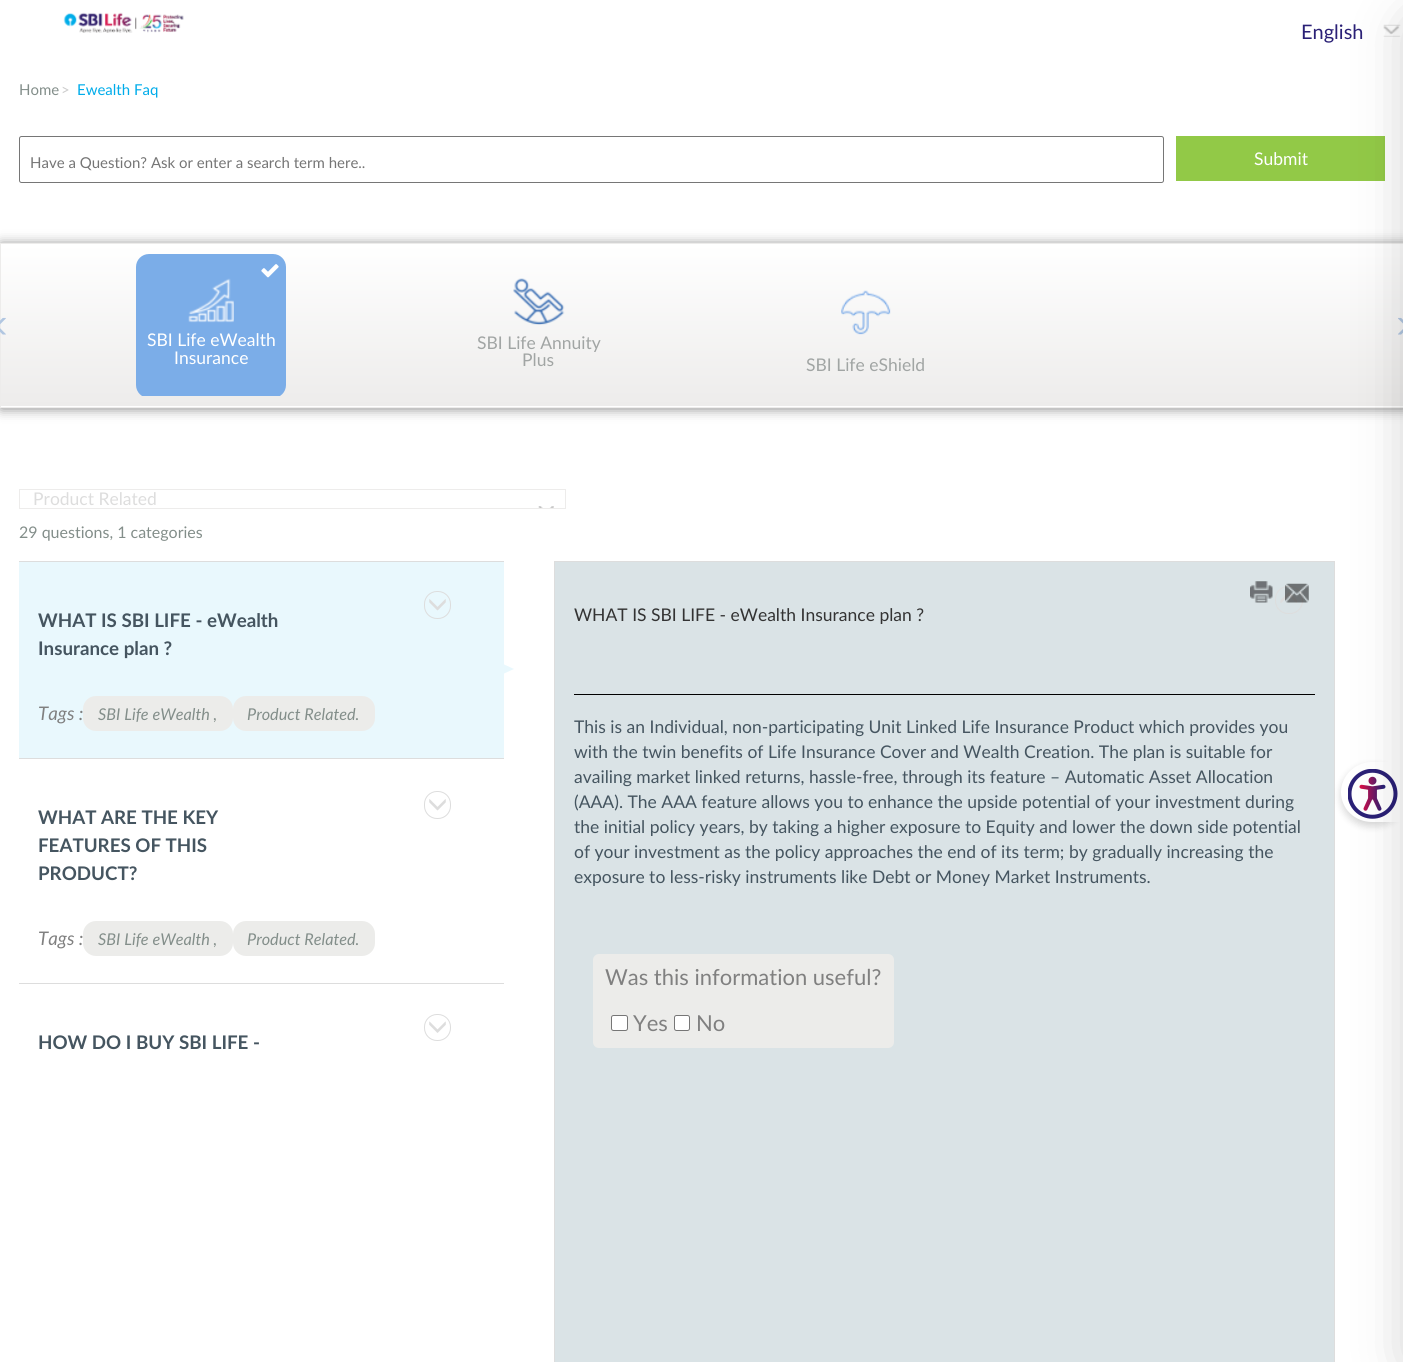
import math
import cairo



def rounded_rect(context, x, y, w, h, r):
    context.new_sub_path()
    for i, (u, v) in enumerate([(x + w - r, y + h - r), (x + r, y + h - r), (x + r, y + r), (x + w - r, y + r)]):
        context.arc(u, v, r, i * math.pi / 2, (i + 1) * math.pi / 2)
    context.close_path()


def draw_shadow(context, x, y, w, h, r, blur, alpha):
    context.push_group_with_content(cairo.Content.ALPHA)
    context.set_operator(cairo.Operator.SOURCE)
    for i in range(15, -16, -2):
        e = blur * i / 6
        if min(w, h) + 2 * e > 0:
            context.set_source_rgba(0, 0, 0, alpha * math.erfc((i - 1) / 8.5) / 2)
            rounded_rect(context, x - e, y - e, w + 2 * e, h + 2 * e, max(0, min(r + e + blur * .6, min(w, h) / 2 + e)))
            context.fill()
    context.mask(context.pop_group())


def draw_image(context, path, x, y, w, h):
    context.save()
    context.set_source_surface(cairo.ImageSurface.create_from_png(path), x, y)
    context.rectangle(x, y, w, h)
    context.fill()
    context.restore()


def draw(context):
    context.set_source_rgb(1, 1, 1)
    context.paint()
    context.set_source_rgb(218 / 255, 227 / 255, 230 / 255)
    context.rectangle(554.5, 561.5, 780, 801)
    context.fill_preserve()
    context.set_source_rgb(221 / 255, 221 / 255, 221 / 255)
    context.set_line_width(1)
    context.stroke()
    context.set_source_rgb(0, 0, 0)
    draw_shadow(context, 1341, 766, 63, 60, 30, 4, 0.16)
    context.set_source_rgb(1, 1, 1)
    context.new_path()
    context.move_to(1372, 762)
    context.line_to(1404, 762)
    context.line_to(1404, 822)
    context.line_to(1372, 822)
    context.curve_to(1355, 822, 1341, 809, 1341, 792)
    context.curve_to(1341, 776, 1355, 762, 1372, 762)
    context.close_path()
    context.fill()
    draw_image(context, "images/1.png", 1348, 769, 50, 50)
    draw_image(context, "images/3.png", 1383, 24, 18, 13)
    context.set_source_rgb(146 / 255, 201 / 255, 71 / 255)
    context.rectangle(1176, 136, 209, 45)
    context.fill()
    context.set_source_rgb(138 / 255, 138 / 255, 138 / 255)
    draw_shadow(context, 1, 244, 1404, 165, 0, 6, 1)
    gradient = cairo.LinearGradient(702, 244, 702, 406)
    gradient.add_color_stop_rgba(0, 1, 1, 1, 1)
    gradient.add_color_stop_rgba(1, 237 / 255, 236 / 255, 235 / 255, 1)
    context.set_source(gradient)
    context.rectangle(1, 244, 1402, 162)
    context.fill()
    gradient = cairo.LinearGradient(702, 406, 702, 569)
    gradient.add_color_stop_rgba(0, 1, 1, 1, 1)
    gradient.add_color_stop_rgba(1, 237 / 255, 236 / 255, 235 / 255, 1)
    context.set_source(gradient)
    context.rectangle(0, 406, 1403, 1)
    context.fill()
    context.rectangle(0.5, 243.5, 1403, 164)
    context.set_source_rgb(237 / 255, 236 / 255, 235 / 255)
    context.stroke()
    draw_image(context, "images/5.png", 1398, 317, 5, 18)
    context.set_source_rgb(0, 0, 0)
    draw_shadow(context, 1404, 13, 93, 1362, 19, 25, 0.17)
    draw_image(context, "images/2.png", 63, 12, 121, 21)
    rounded_rect(context, 19.5, 136.5, 1144, 46, 2)
    context.set_source_rgb(118 / 255, 118 / 255, 118 / 255)
    context.stroke()
    draw_image(context, "images/4.png", 0, 317, 6, 18)
    context.save()
    context.rectangle(51, 254, 1302, 142)
    context.clip()
    context.set_source_rgb(123 / 255, 173 / 255, 232 / 255)
    rounded_rect(context, 136, 254, 150, 144, 13)
    context.fill()
    context.restore()
    draw_image(context, "images/6.png", 261, 264, 18, 14)
    draw_image(context, "images/7.png", 188, 278, 46, 45)
    draw_image(context, "images/8.png", 513, 278, 52, 47)
    draw_image(context, "images/9.png", 841, 290, 50, 45)
    draw_image(context, "images/10.png", 538, 506, 16, 2)
    context.rectangle(19.5, 489.5, 546, 19)
    context.set_source_rgb(237 / 255, 236 / 255, 235 / 255)
    context.stroke()
    context.set_source_rgb(233 / 255, 248 / 255, 253 / 255)
    context.rectangle(19, 562, 485, 196)
    context.fill()
    context.set_source_rgb(221 / 255, 221 / 255, 221 / 255)
    context.rectangle(19, 561, 485, 1)
    context.fill()
    context.rectangle(19, 758, 485, 1)
    context.fill()
    rounded_rect(context, 424.5, 591.5, 26, 27, 12.5)
    context.stroke()
    draw_image(context, "images/11.png", 429, 599, 17, 12)
    context.set_source_rgb(233 / 255, 248 / 255, 253 / 255)
    context.new_path()
    context.move_to(389, 725)
    context.line_to(389, 612)
    context.line_to(514, 669)
    context.close_path()
    context.fill()
    context.set_source_rgb(236 / 255, 236 / 255, 234 / 255)
    rounded_rect(context, 83, 696, 150, 35, 13)
    context.fill()
    rounded_rect(context, 233, 696, 142, 35, 13)
    context.fill()
    rounded_rect(context, 424.5, 791.5, 26, 27, 12.5)
    context.set_source_rgb(221 / 255, 221 / 255, 221 / 255)
    context.stroke()
    draw_image(context, "images/12.png", 429, 799, 17, 12)
    context.set_source_rgb(236 / 255, 236 / 255, 234 / 255)
    rounded_rect(context, 83, 921, 150, 35, 13)
    context.fill()
    rounded_rect(context, 233, 921, 142, 35, 13)
    context.fill()
    context.set_source_rgb(221 / 255, 221 / 255, 221 / 255)
    context.rectangle(19, 983, 485, 1)
    context.fill()
    rounded_rect(context, 424.5, 1014.5, 26, 26, 12.5)
    context.stroke()
    draw_image(context, "images/13.png", 429, 1021, 17, 12)
    draw_image(context, "images/14.png", 1250, 581, 23, 22)
    rounded_rect(context, 1275.5, 586.5, 27, 27, 12.5)
    context.stroke()
    draw_image(context, "images/16.png", 1280, 592, 17, 11)
    draw_image(context, "images/15.png", 1285, 583, 24, 20)
    context.set_source_rgb(0, 0, 0)
    context.rectangle(574, 694, 741, 1)
    context.fill()
    context.set_source_rgb(236 / 255, 236 / 255, 234 / 255)
    rounded_rect(context, 593, 954, 301, 94, 6)
    context.fill()
    context.set_source_rgb(1, 1, 1)
    rounded_rect(context, 611.5, 1015.5, 16, 15, 2)
    context.fill_preserve()
    context.set_source_rgb(118 / 255, 118 / 255, 118 / 255)
    context.stroke()
    context.set_source_rgb(1, 1, 1)
    rounded_rect(context, 674.5, 1015.5, 15, 15, 2)
    context.fill_preserve()
    context.set_source_rgb(118 / 255, 118 / 255, 118 / 255)
    context.stroke()
    context.select_font_face("Lato")
    context.set_font_size(20)
    context.set_source_rgb(42 / 255, 32 / 255, 118 / 255)
    context.move_to(1301, 39)
    context.show_text("English")
    context.set_font_size(15)
    context.set_source_rgb(131 / 255, 142 / 255, 138 / 255)
    context.move_to(19, 95)
    context.show_text("Home")
    context.set_source_rgb(204 / 255, 204 / 255, 204 / 255)
    context.move_to(61, 95)
    context.show_text(">")
    context.set_source_rgb(0, 172 / 255, 234 / 255)
    context.move_to(77, 95)
    context.show_text("Ewealth Faq")
    context.set_source_rgb(117 / 255, 117 / 255, 117 / 255)
    context.move_to(30, 168)
    context.show_text("Have a Question? Ask or enter a search term here..")
    context.set_font_size(17.5)
    context.set_source_rgb(1, 1, 1)
    context.move_to(1254, 165)
    context.show_text("Submit")
    context.move_to(147, 346)
    context.show_text("SBI Life eWealth")
    context.move_to(174, 364)
    context.show_text("Insurance")
    context.set_source_rgb(161 / 255, 165 / 255, 164 / 255)
    context.move_to(477, 349)
    context.show_text("SBI Life Annuity")
    context.move_to(522, 366)
    context.show_text("Plus")
    context.move_to(806, 371)
    context.show_text("SBI Life eShield")
    context.set_source_rgb(221 / 255, 221 / 255, 221 / 255)
    context.move_to(33, 505)
    context.show_text("Product Related")
    context.set_font_size(16)
    context.set_source_rgb(131 / 255, 142 / 255, 138 / 255)
    context.move_to(19, 538)
    context.show_text("29 questions, 1 categories")
    context.select_font_face("Lato", cairo.FontSlant.NORMAL, cairo.FontWeight.BOLD)
    context.set_font_size(18.75)
    context.set_source_rgb(69 / 255, 85 / 255, 96 / 255)
    context.move_to(38, 627)
    context.show_text("WHAT IS SBI LIFE - eWealth")
    context.move_to(38, 655)
    context.show_text("Insurance plan ?")
    context.select_font_face("Lato", cairo.FontSlant.ITALIC)
    context.set_source_rgb(128 / 255, 128 / 255, 128 / 255)
    context.move_to(38, 720)
    context.show_text("Tags :")
    context.set_font_size(16.25)
    context.set_source_rgb(131 / 255, 142 / 255, 138 / 255)
    context.move_to(98, 720)
    context.show_text("SBI Life eWealth ,")
    context.move_to(247, 720)
    context.show_text("Product Related.")
    context.select_font_face("Lato", cairo.FontSlant.NORMAL, cairo.FontWeight.BOLD)
    context.set_font_size(18.75)
    context.set_source_rgb(69 / 255, 85 / 255, 96 / 255)
    context.move_to(38, 824)
    context.show_text("WHAT ARE THE KEY")
    context.move_to(38, 852)
    context.show_text("FEATURES OF THIS")
    context.move_to(38, 880)
    context.show_text("PRODUCT?")
    context.select_font_face("Lato", cairo.FontSlant.ITALIC)
    context.set_source_rgb(128 / 255, 128 / 255, 128 / 255)
    context.move_to(38, 945)
    context.show_text("Tags :")
    context.set_font_size(16.25)
    context.set_source_rgb(131 / 255, 142 / 255, 138 / 255)
    context.move_to(98, 945)
    context.show_text("SBI Life eWealth ,")
    context.move_to(247, 945)
    context.show_text("Product Related.")
    context.select_font_face("Lato", cairo.FontSlant.NORMAL, cairo.FontWeight.BOLD)
    context.set_font_size(18.75)
    context.set_source_rgb(69 / 255, 85 / 255, 96 / 255)
    context.move_to(38, 1049)
    context.show_text("HOW DO I BUY SBI LIFE -")
    context.select_font_face("Lato")
    context.set_font_size(17.5)
    context.set_source_rgb(51 / 255, 51 / 255, 51 / 255)
    context.move_to(574, 621)
    context.show_text("WHAT IS SBI LIFE - eWealth Insurance plan ?")
    context.set_source_rgb(69 / 255, 85 / 255, 96 / 255)
    context.move_to(574, 733)
    context.show_text("This is an Individual, non-participating Unit Linked Life Insurance Product which provides you")
    context.move_to(574, 758)
    context.show_text("with the twin benefits of Life Insurance Cover and Wealth Creation. The plan is suitable for")
    context.move_to(574, 783)
    context.show_text("availing market linked returns, hassle-free, through its feature – Automatic Asset Allocation")
    context.move_to(574, 808)
    context.show_text("(AAA). The AAA feature allows you to enhance the upside potential of your investment during")
    context.move_to(574, 833)
    context.show_text("the initial policy years, by taking a higher exposure to Equity and lower the down side potential")
    context.move_to(574, 858)
    context.show_text("of your investment as the policy approaches the end of its term; by gradually increasing the")
    context.move_to(574, 883)
    context.show_text("exposure to less-risky instruments like Debt or Money Market Instruments.")
    context.set_font_size(22)
    context.set_source_rgb(128 / 255, 128 / 255, 128 / 255)
    context.move_to(605, 985)
    context.show_text("Was this information useful?")
    context.move_to(633, 1031)
    context.show_text("Yes")
    context.move_to(696, 1031)
    context.show_text("No")


surface = cairo.ImageSurface(cairo.Format.RGB24, 1403, 1362)
context = cairo.Context(surface)
options = cairo.FontOptions()
options.set_hint_metrics(cairo.HintMetrics.OFF)
options.set_hint_style(cairo.HintStyle.NONE)
context.set_font_options(options)
context.set_miter_limit(4)
draw(context)
surface.write_to_png("out.png")
